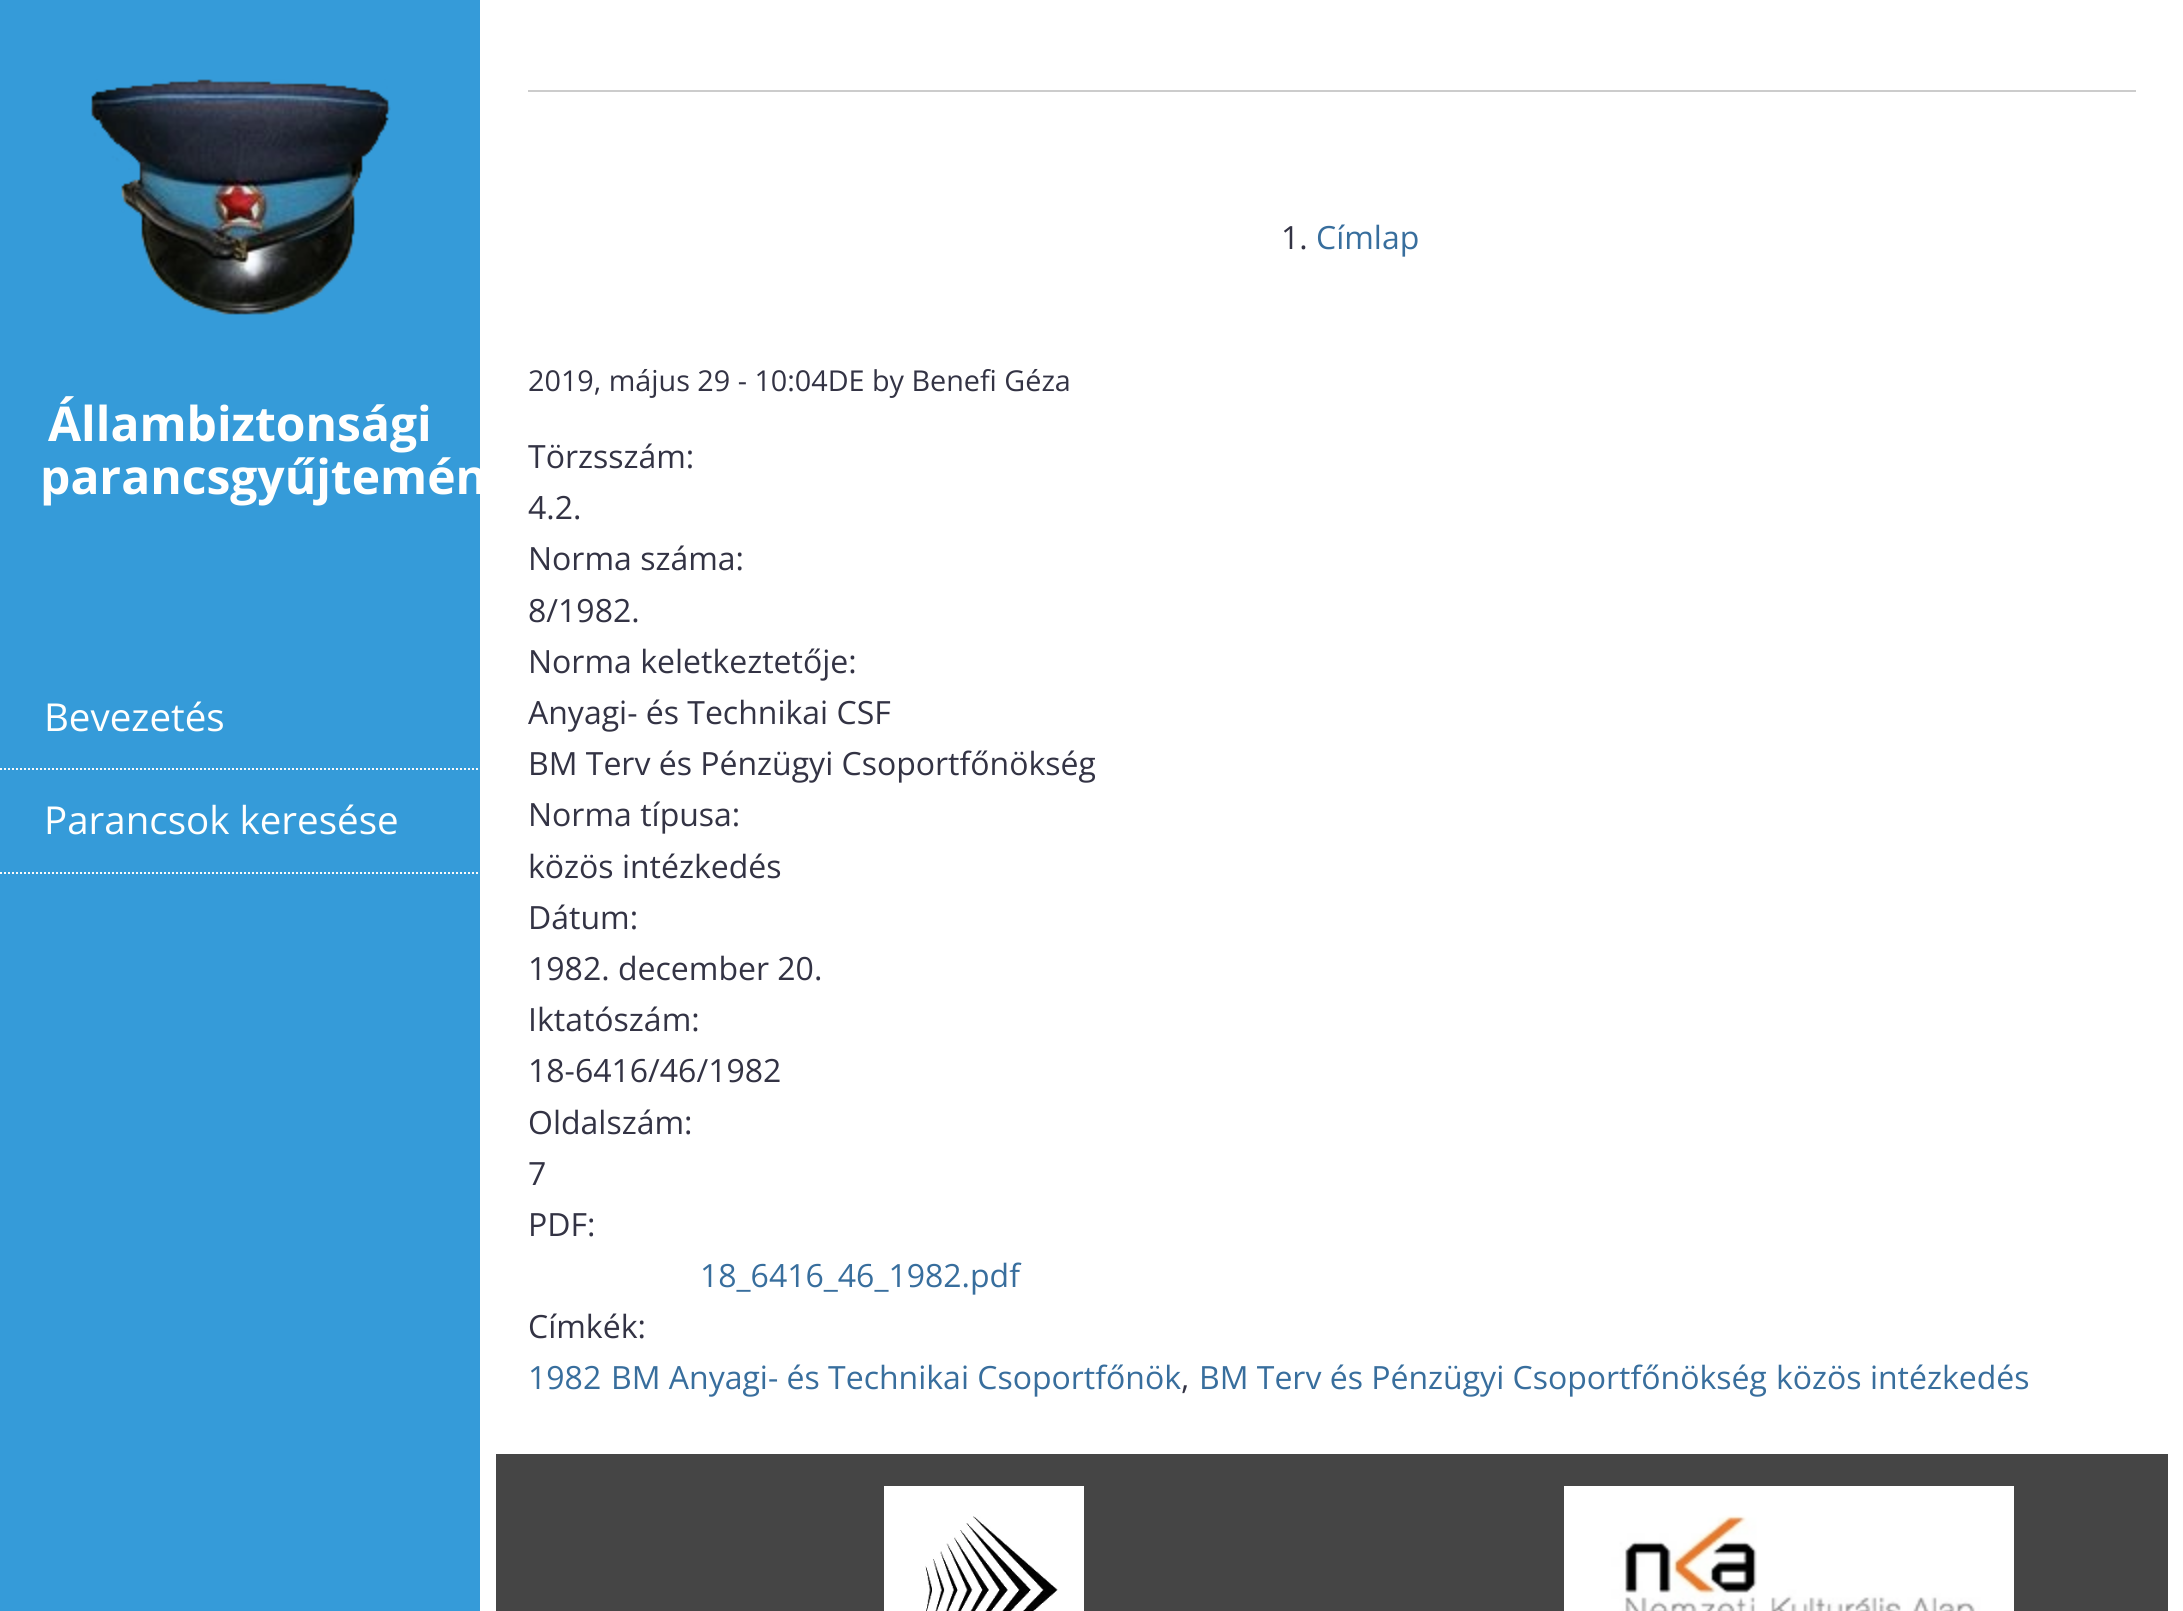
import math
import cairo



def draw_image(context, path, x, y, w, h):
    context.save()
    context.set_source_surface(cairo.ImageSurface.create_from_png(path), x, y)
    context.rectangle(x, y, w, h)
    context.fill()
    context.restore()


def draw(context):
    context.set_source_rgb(1, 1, 1)
    context.paint()
    context.set_source_rgb(53 / 255, 155 / 255, 217 / 255)
    context.rectangle(0, 0, 480, 1611)
    context.fill()
    draw_image(context, "images/1.png", 90, 79, 301, 236)
    context.new_path()
    context.move_to(0, 769)
    context.line_to(480, 769)
    context.set_source_rgb(250 / 255, 250 / 255, 250 / 255)
    context.set_dash([2, 2])
    context.stroke()
    context.new_path()
    context.move_to(0, 873)
    context.line_to(480, 873)
    context.stroke()
    context.set_source_rgb(204 / 255, 204 / 255, 204 / 255)
    context.rectangle(528, 90, 1608, 2)
    context.fill()
    context.set_source_rgb(69 / 255, 69 / 255, 69 / 255)
    context.rectangle(496, 1454, 1672, 157)
    context.fill()
    draw_image(context, "images/2.png", 884, 1486, 200, 125)
    draw_image(context, "images/3.png", 1564, 1486, 450, 125)
    context.select_font_face("Open Sans", cairo.FontSlant.NORMAL, cairo.FontWeight.BOLD)
    context.set_font_size(48)
    context.set_source_rgb(1, 1, 254 / 255)
    context.move_to(48, 441)
    context.show_text("Állambiztonsági")
    context.save()
    context.rectangle(0, 0, 480, 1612)
    context.clip()
    context.move_to(40, 494)
    context.show_text("parancsgyűjtemén")
    context.restore()
    context.select_font_face("Open Sans")
    context.set_font_size(38.5)
    context.move_to(44, 731)
    context.show_text("Bevezetés")
    context.move_to(44, 834)
    context.show_text("Parancsok keresése")
    context.set_font_size(32)
    context.set_source_rgb(51 / 255, 51 / 255, 68 / 255)
    context.move_to(1281, 249)
    context.show_text("1.")
    context.set_source_rgb(56 / 255, 110 / 255, 157 / 255)
    context.move_to(1316, 249)
    context.show_text("Címlap")
    context.set_font_size(28.75)
    context.set_source_rgb(51 / 255, 51 / 255, 68 / 255)
    context.move_to(528, 391)
    context.show_text("2019, május 29 - 10:04DE by Benefi Géza")
    context.set_font_size(32)
    context.move_to(528, 468)
    context.show_text("Törzsszám:")
    context.move_to(528, 519)
    context.show_text("4.2.")
    context.move_to(528, 570)
    context.show_text("Norma száma:")
    context.move_to(528, 622)
    context.show_text("8/1982.")
    context.move_to(528, 673)
    context.show_text("Norma keletkeztetője:")
    context.move_to(528, 724)
    context.show_text("Anyagi- és Technikai CSF")
    context.move_to(528, 775)
    context.show_text("BM Terv és Pénzügyi Csoportfőnökség")
    context.move_to(528, 826)
    context.show_text("Norma típusa:")
    context.move_to(528, 878)
    context.show_text("közös intézkedés")
    context.move_to(528, 929)
    context.show_text("Dátum:")
    context.move_to(528, 980)
    context.show_text("1982. december 20.")
    context.move_to(528, 1031)
    context.show_text("Iktatószám:")
    context.move_to(528, 1082)
    context.show_text("18-6416/46/1982")
    context.move_to(528, 1134)
    context.show_text("Oldalszám:")
    context.move_to(528, 1185)
    context.show_text("7")
    context.move_to(528, 1236)
    context.show_text("PDF:")
    context.set_source_rgb(56 / 255, 110 / 255, 157 / 255)
    context.move_to(700, 1287)
    context.show_text("18_6416_46_1982.pdf")
    context.set_source_rgb(51 / 255, 51 / 255, 68 / 255)
    context.move_to(528, 1338)
    context.show_text("Címkék:")
    context.set_source_rgb(56 / 255, 110 / 255, 157 / 255)
    context.move_to(528, 1389)
    context.show_text("1982")
    context.move_to(611, 1389)
    context.show_text("BM Anyagi- és Technikai Csoportfőnök")
    context.set_source_rgb(51 / 255, 51 / 255, 68 / 255)
    context.move_to(1181, 1389)
    context.show_text(",")
    context.set_source_rgb(56 / 255, 110 / 255, 157 / 255)
    context.move_to(1199, 1389)
    context.show_text("BM Terv és Pénzügyi Csoportfőnökség")
    context.move_to(1776, 1389)
    context.show_text("közös intézkedés")


surface = cairo.ImageSurface(cairo.Format.RGB24, 2183, 1611)
context = cairo.Context(surface)
options = cairo.FontOptions()
options.set_hint_metrics(cairo.HintMetrics.OFF)
options.set_hint_style(cairo.HintStyle.NONE)
context.set_font_options(options)
context.set_miter_limit(4)
draw(context)
surface.write_to_png("out.png")
